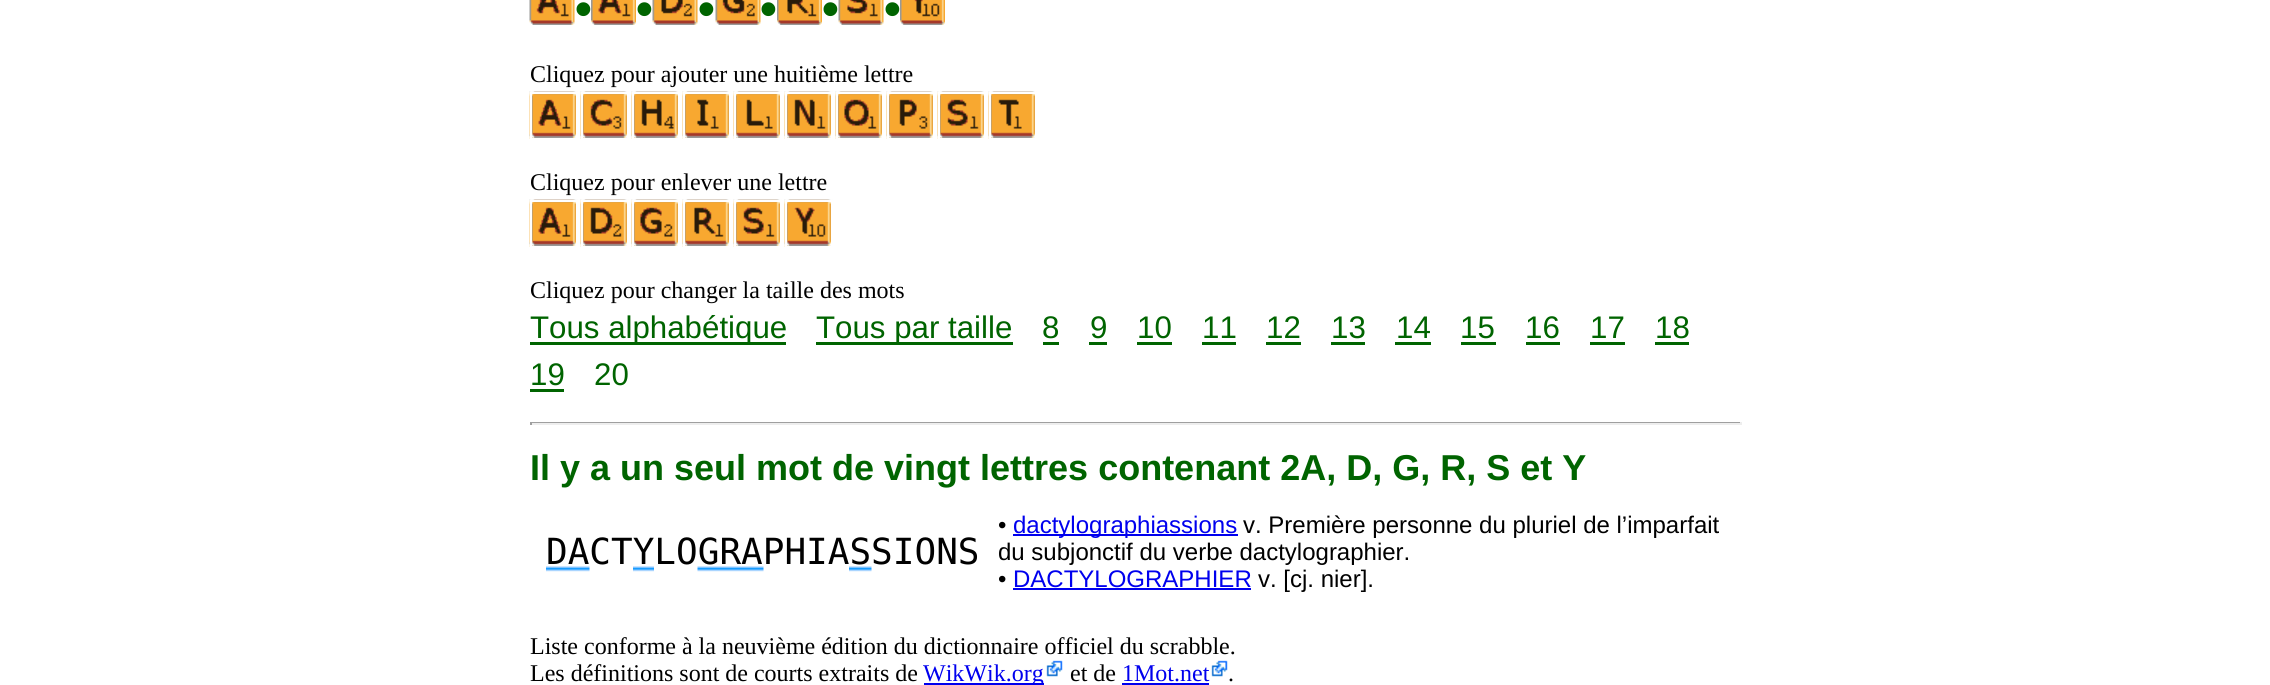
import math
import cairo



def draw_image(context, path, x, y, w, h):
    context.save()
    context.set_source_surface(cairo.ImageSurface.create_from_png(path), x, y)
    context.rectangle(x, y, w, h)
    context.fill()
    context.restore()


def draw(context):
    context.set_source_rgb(1, 1, 1)
    context.paint()
    draw_image(context, "images/1.png", 529, 0, 46, 25)
    draw_image(context, "images/2.png", 591, 0, 45, 25)
    draw_image(context, "images/3.png", 652, 0, 46, 25)
    draw_image(context, "images/4.png", 715, 0, 46, 25)
    draw_image(context, "images/5.png", 777, 0, 45, 25)
    draw_image(context, "images/6.png", 838, 0, 46, 25)
    draw_image(context, "images/7.png", 900, 0, 45, 25)
    draw_image(context, "images/8.png", 529, 91, 49, 48)
    context.rectangle(531, 93, 46, 46)
    context.set_source_rgb(1, 1, 1)
    context.stroke()
    draw_image(context, "images/9.png", 580, 91, 49, 48)
    context.rectangle(582, 93, 46, 46)
    context.stroke()
    draw_image(context, "images/10.png", 631, 91, 49, 48)
    context.rectangle(633, 93, 46, 46)
    context.stroke()
    draw_image(context, "images/11.png", 682, 91, 49, 48)
    context.rectangle(684, 93, 46, 46)
    context.stroke()
    draw_image(context, "images/12.png", 733, 91, 49, 48)
    context.rectangle(735, 93, 46, 46)
    context.stroke()
    draw_image(context, "images/13.png", 784, 91, 49, 48)
    context.rectangle(786, 93, 46, 46)
    context.stroke()
    draw_image(context, "images/14.png", 835, 91, 49, 48)
    context.rectangle(837, 93, 46, 46)
    context.stroke()
    draw_image(context, "images/15.png", 886, 91, 49, 48)
    context.rectangle(888, 93, 46, 46)
    context.stroke()
    draw_image(context, "images/16.png", 937, 91, 49, 48)
    context.rectangle(939, 93, 46, 46)
    context.stroke()
    draw_image(context, "images/17.png", 988, 91, 49, 48)
    context.rectangle(990, 93, 46, 46)
    context.stroke()
    draw_image(context, "images/8.png", 529, 199, 49, 48)
    context.rectangle(531, 201, 46, 46)
    context.stroke()
    draw_image(context, "images/18.png", 580, 199, 49, 48)
    context.rectangle(582, 201, 46, 46)
    context.stroke()
    draw_image(context, "images/19.png", 631, 199, 49, 48)
    context.rectangle(633, 201, 46, 46)
    context.stroke()
    draw_image(context, "images/20.png", 682, 199, 49, 48)
    context.rectangle(684, 201, 46, 46)
    context.stroke()
    draw_image(context, "images/21.png", 733, 199, 49, 48)
    context.rectangle(735, 201, 46, 46)
    context.stroke()
    draw_image(context, "images/22.png", 784, 199, 49, 48)
    context.rectangle(786, 201, 46, 46)
    context.stroke()
    context.set_source_rgb(0, 100 / 255, 0)
    context.rectangle(530, 342, 256, 3)
    context.fill()
    context.rectangle(816, 342, 197, 3)
    context.fill()
    context.rectangle(1043, 342, 16, 3)
    context.fill()
    context.rectangle(1089, 342, 18, 3)
    context.fill()
    context.rectangle(1137, 342, 35, 3)
    context.fill()
    context.rectangle(1202, 342, 34, 3)
    context.fill()
    context.rectangle(1266, 342, 35, 3)
    context.fill()
    context.rectangle(1331, 342, 34, 3)
    context.fill()
    context.rectangle(1395, 342, 36, 3)
    context.fill()
    context.rectangle(1461, 342, 35, 3)
    context.fill()
    context.rectangle(1526, 342, 34, 3)
    context.fill()
    context.rectangle(1590, 342, 35, 3)
    context.fill()
    context.rectangle(1655, 342, 34, 3)
    context.fill()
    context.rectangle(530, 389, 34, 3)
    context.fill()
    context.set_source_rgb(159 / 255, 159 / 255, 159 / 255)
    context.rectangle(530, 422, 1212, 1)
    context.fill()
    context.set_source_rgb(238 / 255, 238 / 255, 238 / 255)
    context.rectangle(1740, 422, 2, 3)
    context.fill()
    context.rectangle(530, 423, 1212, 2)
    context.fill()
    context.set_source_rgb(159 / 255, 159 / 255, 159 / 255)
    context.rectangle(530, 422, 2, 3)
    context.fill()
    draw_image(context, "images/23.png", 546, 566, 44, 6)
    draw_image(context, "images/24.png", 633, 566, 21, 6)
    draw_image(context, "images/25.png", 697, 566, 67, 6)
    draw_image(context, "images/26.png", 849, 566, 23, 6)
    context.set_source_rgb(0, 0, 238 / 255)
    context.rectangle(1013, 534, 225, 2)
    context.fill()
    context.rectangle(1013, 588, 238, 2)
    context.fill()
    context.rectangle(924, 683, 120, 2)
    context.fill()
    draw_image(context, "images/27.png", 1046, 660, 17, 17)
    context.rectangle(1122, 683, 87, 2)
    context.fill()
    draw_image(context, "images/28.png", 1211, 660, 17, 17)
    context.select_font_face("Liberation Sans", cairo.FontSlant.NORMAL, cairo.FontWeight.BOLD)
    context.set_font_size(48)
    context.set_source_rgb(0, 100 / 255, 0)
    context.move_to(575, 25)
    context.show_text("•")
    context.move_to(636, 25)
    context.show_text("•")
    context.move_to(698, 25)
    context.show_text("•")
    context.move_to(760, 25)
    context.show_text("•")
    context.move_to(822, 25)
    context.show_text("•")
    context.move_to(884, 25)
    context.show_text("•")
    context.select_font_face("Liberation Serif")
    context.set_font_size(24)
    context.set_source_rgb(0, 0, 0)
    context.move_to(530, 82)
    context.show_text("Cliquez pour ajouter une huitième lettre")
    context.move_to(530, 190)
    context.show_text("Cliquez pour enlever une lettre")
    context.move_to(530, 298)
    context.show_text("Cliquez pour changer la taille des mots")
    context.select_font_face("Liberation Sans")
    context.set_font_size(31.25)
    context.set_source_rgb(0, 100 / 255, 0)
    context.move_to(530, 338)
    context.show_text("Tous alphabétique")
    context.move_to(816, 338)
    context.show_text("Tous par taille")
    context.move_to(1042, 338)
    context.show_text("8")
    context.move_to(1090, 338)
    context.show_text("9")
    context.move_to(1137, 338)
    context.show_text("10")
    context.move_to(1202, 338)
    context.show_text("11")
    context.move_to(1266, 338)
    context.show_text("12")
    context.move_to(1331, 338)
    context.show_text("13")
    context.move_to(1396, 338)
    context.show_text("14")
    context.move_to(1460, 338)
    context.show_text("15")
    context.move_to(1525, 338)
    context.show_text("16")
    context.move_to(1590, 338)
    context.show_text("17")
    context.move_to(1655, 338)
    context.show_text("18")
    context.move_to(530, 385)
    context.show_text("19")
    context.move_to(594, 385)
    context.show_text("20")
    context.select_font_face("Liberation Sans", cairo.FontSlant.NORMAL, cairo.FontWeight.BOLD)
    context.set_font_size(36)
    context.move_to(530, 480)
    context.show_text("Il y a un seul mot de vingt lettres contenant 2A, D, G, R, S et Y")
    context.select_font_face("DejaVu Sans Mono")
    context.set_source_rgb(0, 0, 0)
    context.move_to(546, 564)
    context.show_text("DACTYLOGRAPHIASSIONS")
    context.select_font_face("Liberation Sans")
    context.set_font_size(24)
    context.move_to(998, 533)
    context.show_text("•")
    context.set_source_rgb(0, 0, 238 / 255)
    context.move_to(1013, 533)
    context.show_text("dactylographiassions")
    context.set_source_rgb(0, 0, 0)
    context.move_to(1243, 533)
    context.show_text("v. Première personne du pluriel de l’imparfait")
    context.move_to(998, 560)
    context.show_text("du subjonctif du verbe dactylographier.")
    context.move_to(998, 587)
    context.show_text("•")
    context.set_source_rgb(0, 0, 238 / 255)
    context.move_to(1013, 587)
    context.show_text("DACTYLOGRAPHIER")
    context.set_source_rgb(0, 0, 0)
    context.move_to(1258, 587)
    context.show_text("v. [cj. nier].")
    context.select_font_face("Liberation Serif")
    context.move_to(530, 654)
    context.show_text("Liste conforme à la neuvième édition du dictionnaire officiel du scrabble.")
    context.move_to(530, 681)
    context.show_text("Les définitions sont de courts extraits de")
    context.set_source_rgb(0, 0, 238 / 255)
    context.move_to(923, 681)
    context.show_text("WikWik.org")
    context.set_source_rgb(0, 0, 0)
    context.move_to(1070, 681)
    context.show_text("et de")
    context.set_source_rgb(0, 0, 238 / 255)
    context.move_to(1122, 681)
    context.show_text("1Mot.net")
    context.set_source_rgb(0, 0, 0)
    context.move_to(1228, 681)
    context.show_text(".")


surface = cairo.ImageSurface(cairo.Format.RGB24, 2270, 685)
context = cairo.Context(surface)
options = cairo.FontOptions()
options.set_hint_metrics(cairo.HintMetrics.OFF)
options.set_hint_style(cairo.HintStyle.NONE)
context.set_font_options(options)
context.set_miter_limit(4)
draw(context)
surface.write_to_png("out.png")
